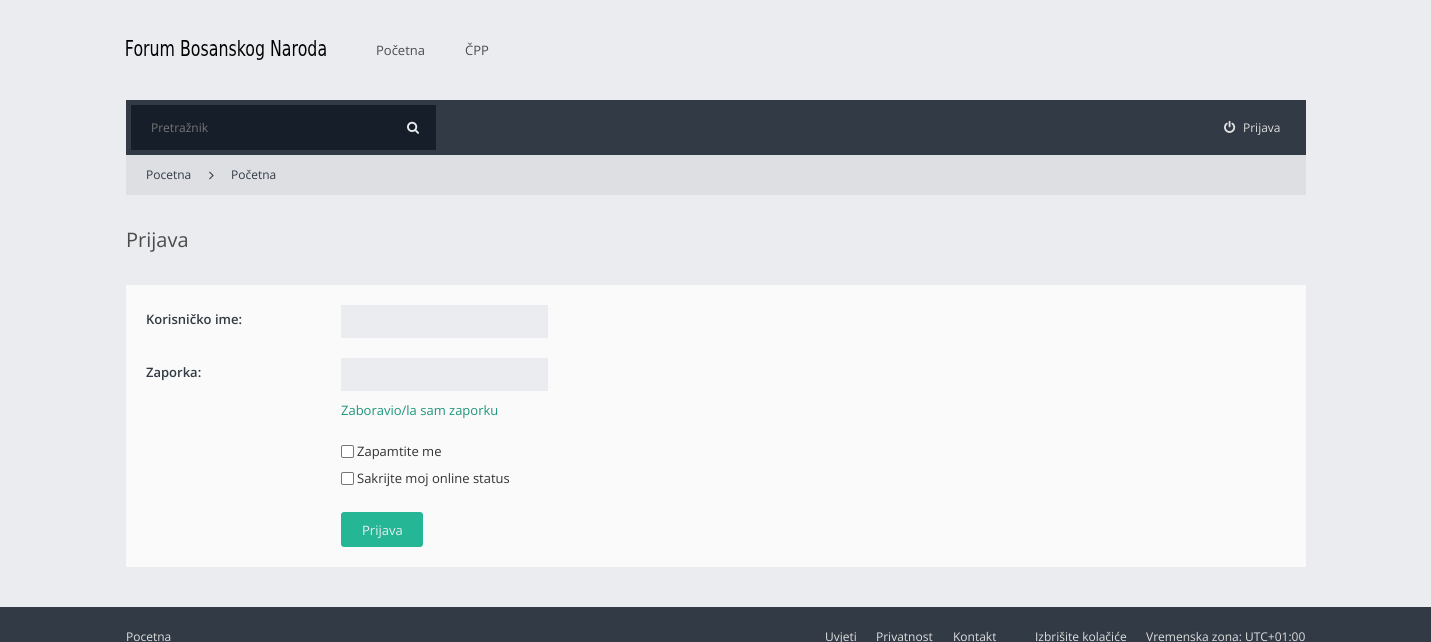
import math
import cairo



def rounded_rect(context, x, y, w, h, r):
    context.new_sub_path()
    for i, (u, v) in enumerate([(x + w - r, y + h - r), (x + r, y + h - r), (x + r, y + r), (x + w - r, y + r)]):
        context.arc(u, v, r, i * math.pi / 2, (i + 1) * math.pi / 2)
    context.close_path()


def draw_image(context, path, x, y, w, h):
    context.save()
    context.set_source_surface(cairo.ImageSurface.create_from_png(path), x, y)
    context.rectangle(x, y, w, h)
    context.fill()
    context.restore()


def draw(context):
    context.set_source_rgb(234 / 255, 236 / 255, 240 / 255)
    context.paint()
    draw_image(context, "images/1.png", 126, 40, 200, 20)
    context.set_source_rgb(50 / 255, 58 / 255, 69 / 255)
    context.rectangle(126, 100, 1180, 55)
    context.fill()
    context.set_source_rgb(22 / 255, 30 / 255, 41 / 255)
    context.rectangle(131, 105, 305, 45)
    context.fill()
    draw_image(context, "images/2.png", 407, 121, 12, 13)
    draw_image(context, "images/3.png", 1224, 120, 12, 13)
    context.set_source_rgb(221 / 255, 223 / 255, 227 / 255)
    context.rectangle(126, 155, 1180, 40)
    context.fill()
    draw_image(context, "images/4.png", 209, 171, 5, 9)
    context.set_source_rgb(250 / 255, 250 / 255, 250 / 255)
    context.rectangle(126, 285, 1180, 282)
    context.fill()
    context.set_source_rgb(234 / 255, 236 / 255, 240 / 255)
    context.rectangle(341, 305, 207, 33)
    context.fill()
    context.rectangle(341, 358, 207, 33)
    context.fill()
    context.set_source_rgb(1, 1, 1)
    rounded_rect(context, 341.5, 445.5, 12, 12, 1.5)
    context.fill_preserve()
    context.set_source_rgb(118 / 255, 118 / 255, 118 / 255)
    context.set_line_width(1)
    context.stroke()
    context.set_source_rgb(1, 1, 1)
    rounded_rect(context, 341.5, 472.5, 12, 12, 1.5)
    context.fill_preserve()
    context.set_source_rgb(118 / 255, 118 / 255, 118 / 255)
    context.stroke()
    context.set_source_rgb(37 / 255, 182 / 255, 149 / 255)
    rounded_rect(context, 341.5, 512.5, 81, 34, 2.5)
    context.fill_preserve()
    context.stroke()
    context.set_source_rgb(50 / 255, 58 / 255, 69 / 255)
    context.rectangle(0, 607, 1431, 35)
    context.fill()
    context.select_font_face("Open Sans")
    context.set_font_size(13)
    context.set_source_rgb(76 / 255, 76 / 255, 76 / 255)
    context.move_to(376, 55)
    context.show_text("Početna")
    context.move_to(465, 55)
    context.show_text("ČPP")
    context.set_font_size(12)
    context.set_source_rgb(117 / 255, 117 / 255, 117 / 255)
    context.move_to(151, 132)
    context.show_text("Pretražnik")
    context.set_source_rgb(221 / 255, 221 / 255, 221 / 255)
    context.move_to(1243, 132)
    context.show_text("Prijava")
    context.set_source_rgb(50 / 255, 58 / 255, 69 / 255)
    context.move_to(146, 179)
    context.show_text("Pocetna")
    context.move_to(231, 179)
    context.show_text("Početna")
    context.set_font_size(20)
    context.set_source_rgb(76 / 255, 76 / 255, 76 / 255)
    context.move_to(126, 247)
    context.show_text("Prijava")
    context.select_font_face("Open Sans SemiBold")
    context.set_font_size(13)
    context.set_source_rgb(50 / 255, 58 / 255, 69 / 255)
    context.move_to(146, 324)
    context.show_text("Korisničko ime:")
    context.move_to(146, 377)
    context.show_text("Zaporka:")
    context.select_font_face("Open Sans")
    context.set_source_rgb(31 / 255, 150 / 255, 123 / 255)
    context.move_to(341, 415)
    context.show_text("Zaboravio/la sam zaporku")
    context.set_source_rgb(51 / 255, 51 / 255, 51 / 255)
    context.move_to(357, 456)
    context.show_text("Zapamtite me")
    context.move_to(357, 483)
    context.show_text("Sakrijte moj online status")
    context.set_source_rgb(234 / 255, 236 / 255, 240 / 255)
    context.move_to(362, 535)
    context.show_text("Prijava")
    context.set_font_size(12)
    context.set_source_rgb(221 / 255, 221 / 255, 221 / 255)
    context.move_to(126, 641)
    context.show_text("Pocetna")
    context.move_to(825, 641)
    context.show_text("Uvjeti")
    context.move_to(876, 641)
    context.show_text("Privatnost")
    context.move_to(953, 641)
    context.show_text("Kontakt")
    context.move_to(1035, 641)
    context.show_text("Izbrišite kolačiće")
    context.move_to(1146, 641)
    context.show_text("Vremenska zona: UTC+01:00")


surface = cairo.ImageSurface(cairo.Format.RGB24, 1431, 642)
context = cairo.Context(surface)
options = cairo.FontOptions()
options.set_hint_metrics(cairo.HintMetrics.OFF)
options.set_hint_style(cairo.HintStyle.NONE)
context.set_font_options(options)
context.set_miter_limit(4)
draw(context)
surface.write_to_png("out.png")
